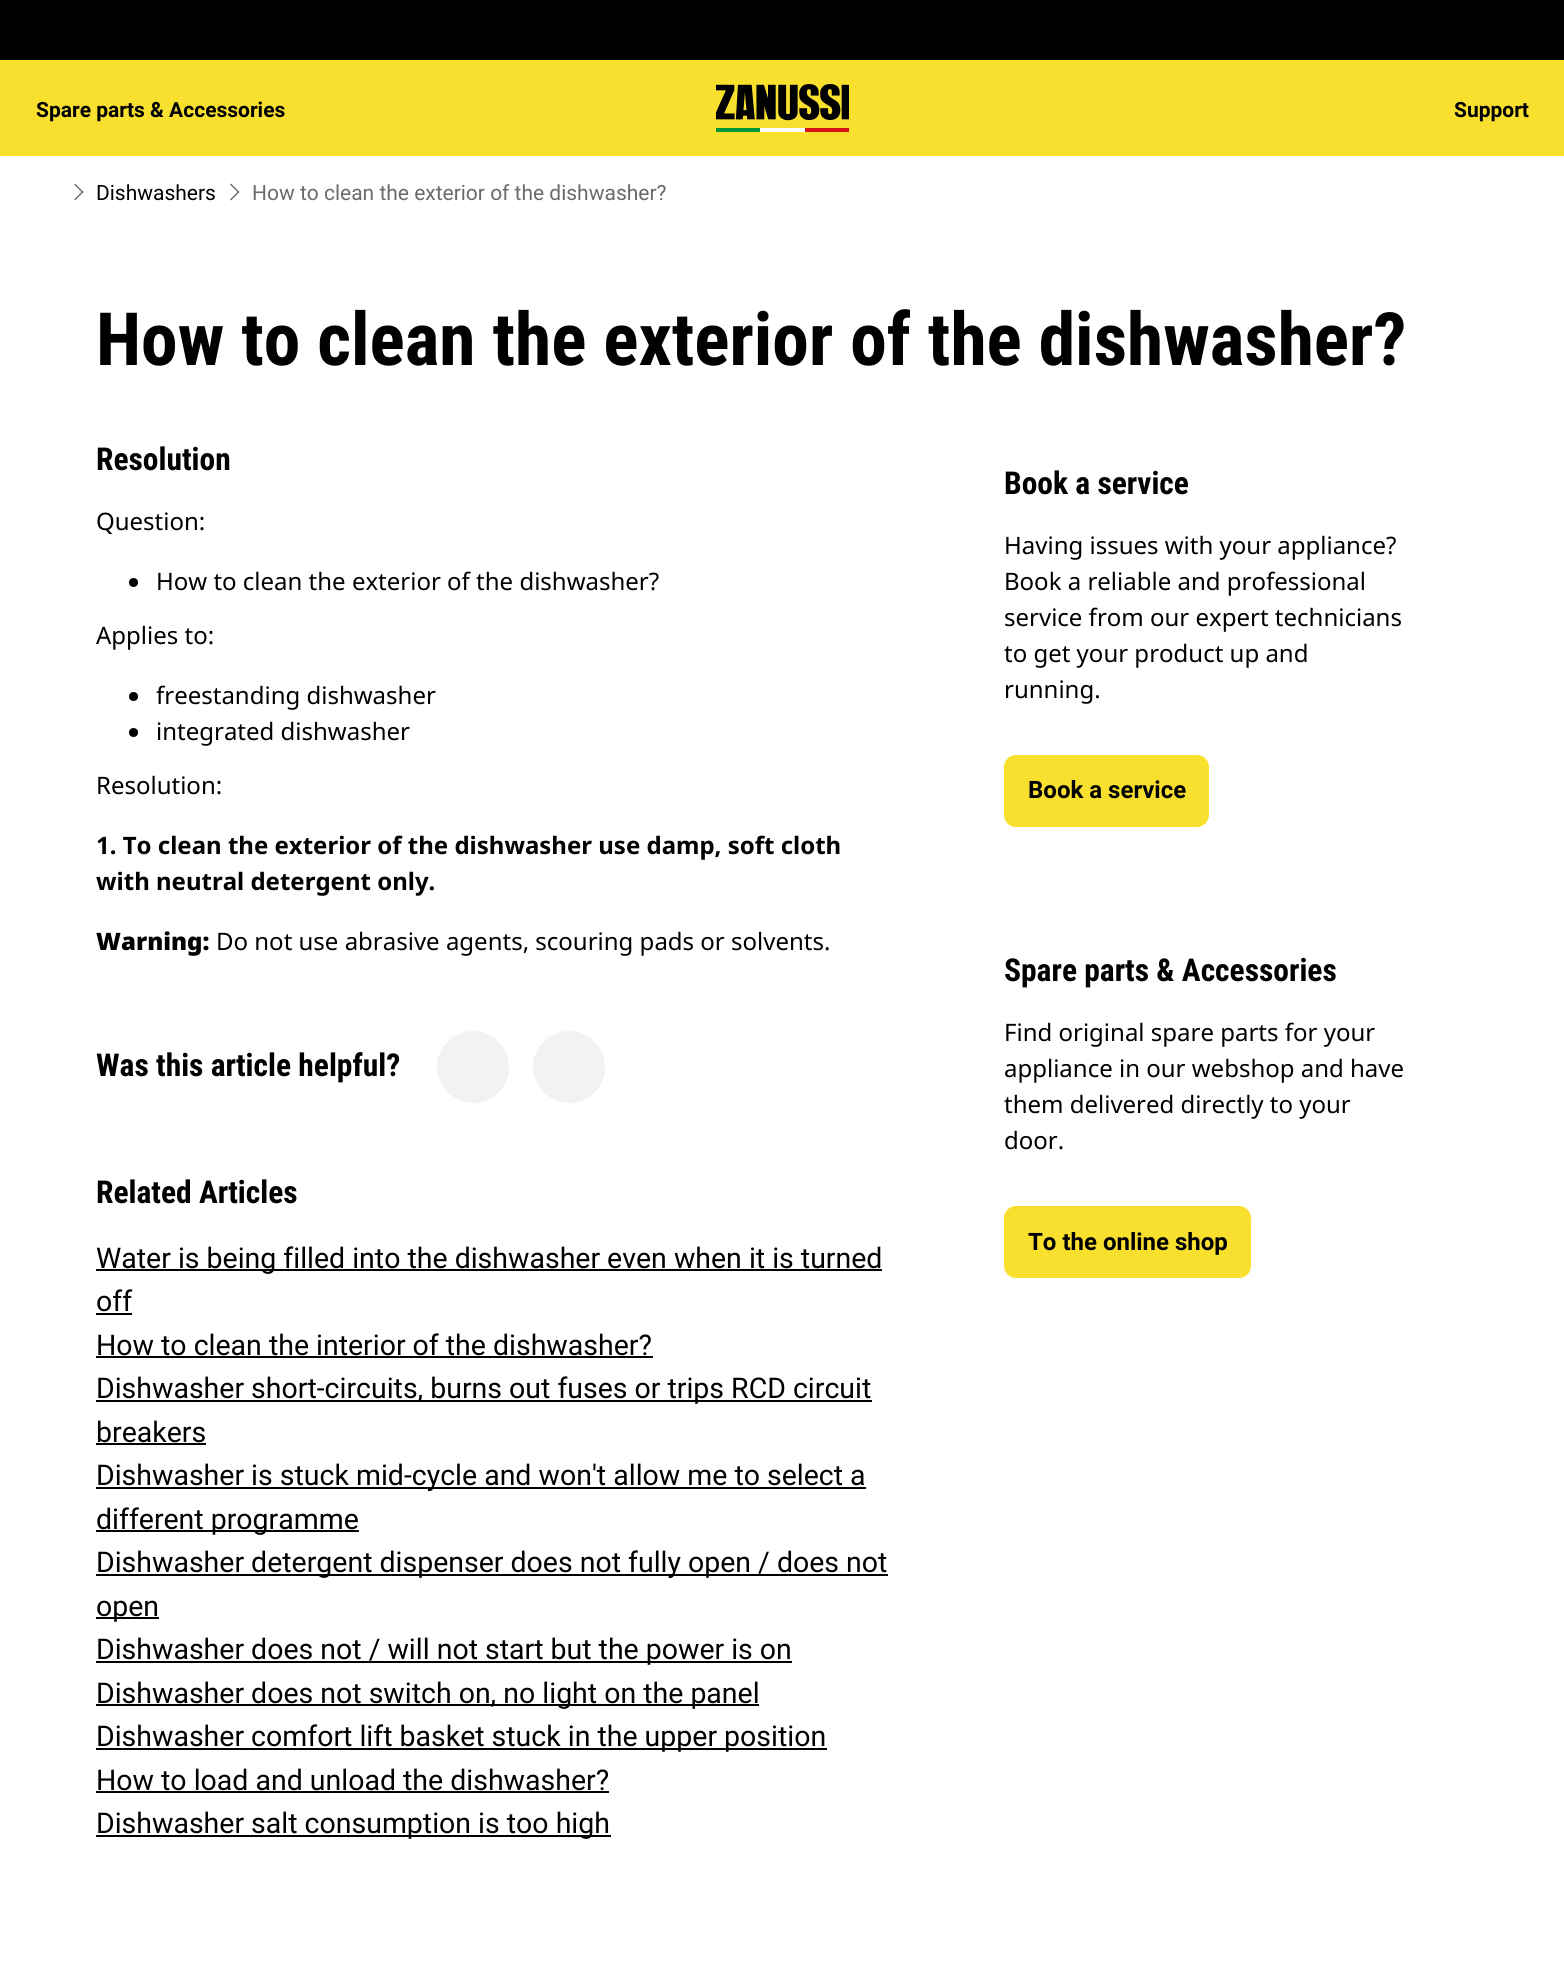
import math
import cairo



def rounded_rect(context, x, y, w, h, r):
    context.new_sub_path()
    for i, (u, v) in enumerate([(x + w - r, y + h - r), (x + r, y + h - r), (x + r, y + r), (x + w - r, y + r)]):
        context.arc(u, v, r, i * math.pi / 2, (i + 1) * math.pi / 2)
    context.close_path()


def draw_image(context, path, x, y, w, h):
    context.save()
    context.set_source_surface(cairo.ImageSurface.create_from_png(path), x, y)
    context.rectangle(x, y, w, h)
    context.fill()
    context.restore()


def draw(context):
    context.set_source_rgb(1, 1, 1)
    context.paint()
    context.set_source_rgb(0, 0, 0)
    context.rectangle(0, 0, 1564, 60)
    context.fill()
    context.set_source_rgb(249 / 255, 224 / 255, 47 / 255)
    context.rectangle(0, 60, 1564, 96)
    context.fill()
    draw_image(context, "images/1.png", 716, 84, 133, 48)
    context.set_source_rgb(106 / 255, 106 / 255, 106 / 255)
    context.new_path()
    context.move_to(75, 183.5)
    context.line_to(83.5, 192)
    context.line_to(82.5, 193)
    context.line_to(74, 184.5)
    context.close_path()
    context.fill()
    context.new_path()
    context.move_to(82.5, 191)
    context.line_to(83.5, 192)
    context.line_to(75, 200.5)
    context.line_to(74, 199.5)
    context.close_path()
    context.fill()
    context.new_path()
    context.move_to(231, 183.5)
    context.line_to(239.5, 192)
    context.line_to(238.5, 193)
    context.line_to(230, 184.5)
    context.close_path()
    context.fill()
    context.new_path()
    context.move_to(238.5, 191)
    context.line_to(239.5, 192)
    context.line_to(231, 200.5)
    context.line_to(230, 199.5)
    context.close_path()
    context.fill()
    context.set_source_rgb(0, 0, 0)
    context.arc(133.5, 582.5, 4.5, 0, 2 * math.pi)
    context.fill()
    context.arc(133.5, 696.5, 4.5, 0, 2 * math.pi)
    context.fill()
    context.arc(133.5, 732.5, 4.5, 0, 2 * math.pi)
    context.fill()
    context.set_source_rgb(242 / 255, 242 / 255, 242 / 255)
    context.arc(473, 1067, 36, 0, 2 * math.pi)
    context.fill()
    context.arc(569, 1067, 36, 0, 2 * math.pi)
    context.fill()
    context.set_source_rgb(0, 0, 0)
    context.rectangle(96, 1269, 786, 2)
    context.fill()
    context.rectangle(96, 1313, 36, 2)
    context.fill()
    context.rectangle(96, 1356, 557, 2)
    context.fill()
    context.rectangle(96, 1400, 776, 2)
    context.fill()
    context.rectangle(96, 1443, 110, 2)
    context.fill()
    context.rectangle(96, 1487, 770, 2)
    context.fill()
    context.rectangle(96, 1530, 263, 2)
    context.fill()
    context.rectangle(96, 1574, 792, 2)
    context.fill()
    context.rectangle(96, 1617, 63, 2)
    context.fill()
    context.rectangle(96, 1661, 696, 2)
    context.fill()
    context.rectangle(96, 1704, 663, 2)
    context.fill()
    context.rectangle(96, 1748, 731, 2)
    context.fill()
    context.rectangle(96, 1791, 513, 2)
    context.fill()
    context.rectangle(96, 1835, 515, 2)
    context.fill()
    context.set_source_rgb(249 / 255, 224 / 255, 47 / 255)
    rounded_rect(context, 1004, 755, 205, 72, 12)
    context.fill()
    rounded_rect(context, 1004, 1206, 247, 72, 12)
    context.fill()
    context.select_font_face("Roboto", cairo.FontSlant.NORMAL, cairo.FontWeight.BOLD)
    context.set_font_size(21)
    context.set_source_rgb(0, 0, 0)
    context.move_to(36, 117)
    context.show_text("Spare parts & Accessories")
    context.move_to(1454, 117)
    context.show_text("Support")
    context.select_font_face("Roboto")
    context.move_to(96, 200)
    context.show_text("Dishwashers")
    context.set_source_rgb(106 / 255, 106 / 255, 106 / 255)
    context.move_to(252, 200)
    context.show_text("How to clean the exterior of the dishwasher?")
    context.select_font_face("Roboto Condensed", cairo.FontSlant.NORMAL, cairo.FontWeight.BOLD)
    context.set_font_size(73.5)
    context.set_source_rgb(0, 0, 0)
    context.move_to(96, 365)
    context.show_text("How to clean the exterior of the dishwasher?")
    context.set_font_size(31.5)
    context.move_to(96, 470)
    context.show_text("Resolution")
    context.select_font_face("Noto Sans")
    context.set_font_size(24)
    context.move_to(96, 530)
    context.show_text("Question:")
    context.move_to(156, 590)
    context.show_text("How to clean the exterior of the dishwasher?")
    context.move_to(96, 644)
    context.show_text("Applies to:")
    context.move_to(156, 704)
    context.show_text("freestanding dishwasher")
    context.move_to(156, 740)
    context.show_text("integrated dishwasher")
    context.move_to(96, 794)
    context.show_text("Resolution:")
    context.select_font_face("Noto Sans", cairo.FontSlant.NORMAL, cairo.FontWeight.BOLD)
    context.move_to(96, 854)
    context.show_text("1. To clean the exterior of the dishwasher use damp, soft cloth")
    context.move_to(96, 890)
    context.show_text("with neutral detergent only.")
    context.select_font_face("Noto Sans Black")
    context.move_to(96, 950)
    context.show_text("Warning:")
    context.select_font_face("Noto Sans")
    context.move_to(216, 950)
    context.show_text("Do not use abrasive agents, scouring pads or solvents.")
    context.select_font_face("Roboto Condensed", cairo.FontSlant.NORMAL, cairo.FontWeight.BOLD)
    context.set_font_size(31.5)
    context.move_to(96, 1076)
    context.show_text("Was this article helpful?")
    context.move_to(96, 1203)
    context.show_text("Related Articles")
    context.select_font_face("Roboto")
    context.set_font_size(28.5)
    context.move_to(96, 1268)
    context.show_text("Water is being filled into the dishwasher even when it is turned")
    context.move_to(96, 1311)
    context.show_text("off")
    context.move_to(96, 1355)
    context.show_text("How to clean the interior of the dishwasher?")
    context.move_to(96, 1398)
    context.show_text("Dishwasher short-circuits, burns out fuses or trips RCD circuit")
    context.move_to(96, 1442)
    context.show_text("breakers")
    context.move_to(96, 1485)
    context.show_text("Dishwasher is stuck mid-cycle and won't allow me to select a")
    context.move_to(96, 1529)
    context.show_text("different programme")
    context.move_to(96, 1572)
    context.show_text("Dishwasher detergent dispenser does not fully open / does not")
    context.move_to(96, 1616)
    context.show_text("open")
    context.move_to(96, 1659)
    context.show_text("Dishwasher does not / will not start but the power is on")
    context.move_to(96, 1703)
    context.show_text("Dishwasher does not switch on, no light on the panel")
    context.move_to(96, 1746)
    context.show_text("Dishwasher comfort lift basket stuck in the upper position")
    context.move_to(96, 1790)
    context.show_text("How to load and unload the dishwasher?")
    context.move_to(96, 1833)
    context.show_text("Dishwasher salt consumption is too high")
    context.select_font_face("Roboto Condensed", cairo.FontSlant.NORMAL, cairo.FontWeight.BOLD)
    context.set_font_size(31.5)
    context.move_to(1004, 494)
    context.show_text("Book a service")
    context.select_font_face("Noto Sans")
    context.set_font_size(24)
    context.move_to(1004, 554)
    context.show_text("Having issues with your appliance?")
    context.move_to(1004, 590)
    context.show_text("Book a reliable and professional")
    context.move_to(1004, 626)
    context.show_text("service from our expert technicians")
    context.move_to(1004, 662)
    context.show_text("to get your product up and")
    context.move_to(1004, 698)
    context.show_text("running.")
    context.select_font_face("Roboto", cairo.FontSlant.NORMAL, cairo.FontWeight.BOLD)
    context.move_to(1028, 798)
    context.show_text("Book a service")
    context.select_font_face("Roboto Condensed", cairo.FontSlant.NORMAL, cairo.FontWeight.BOLD)
    context.set_font_size(31.5)
    context.move_to(1004, 981)
    context.show_text("Spare parts & Accessories")
    context.select_font_face("Noto Sans")
    context.set_font_size(24)
    context.move_to(1004, 1041)
    context.show_text("Find original spare parts for your")
    context.move_to(1004, 1077)
    context.show_text("appliance in our webshop and have")
    context.move_to(1004, 1113)
    context.show_text("them delivered directly to your")
    context.move_to(1004, 1149)
    context.show_text("door.")
    context.select_font_face("Roboto", cairo.FontSlant.NORMAL, cairo.FontWeight.BOLD)
    context.move_to(1028, 1250)
    context.show_text("To the online shop")


surface = cairo.ImageSurface(cairo.Format.RGB24, 1564, 1970)
context = cairo.Context(surface)
options = cairo.FontOptions()
options.set_hint_metrics(cairo.HintMetrics.OFF)
options.set_hint_style(cairo.HintStyle.NONE)
context.set_font_options(options)
context.set_miter_limit(4)
draw(context)
surface.write_to_png("out.png")
